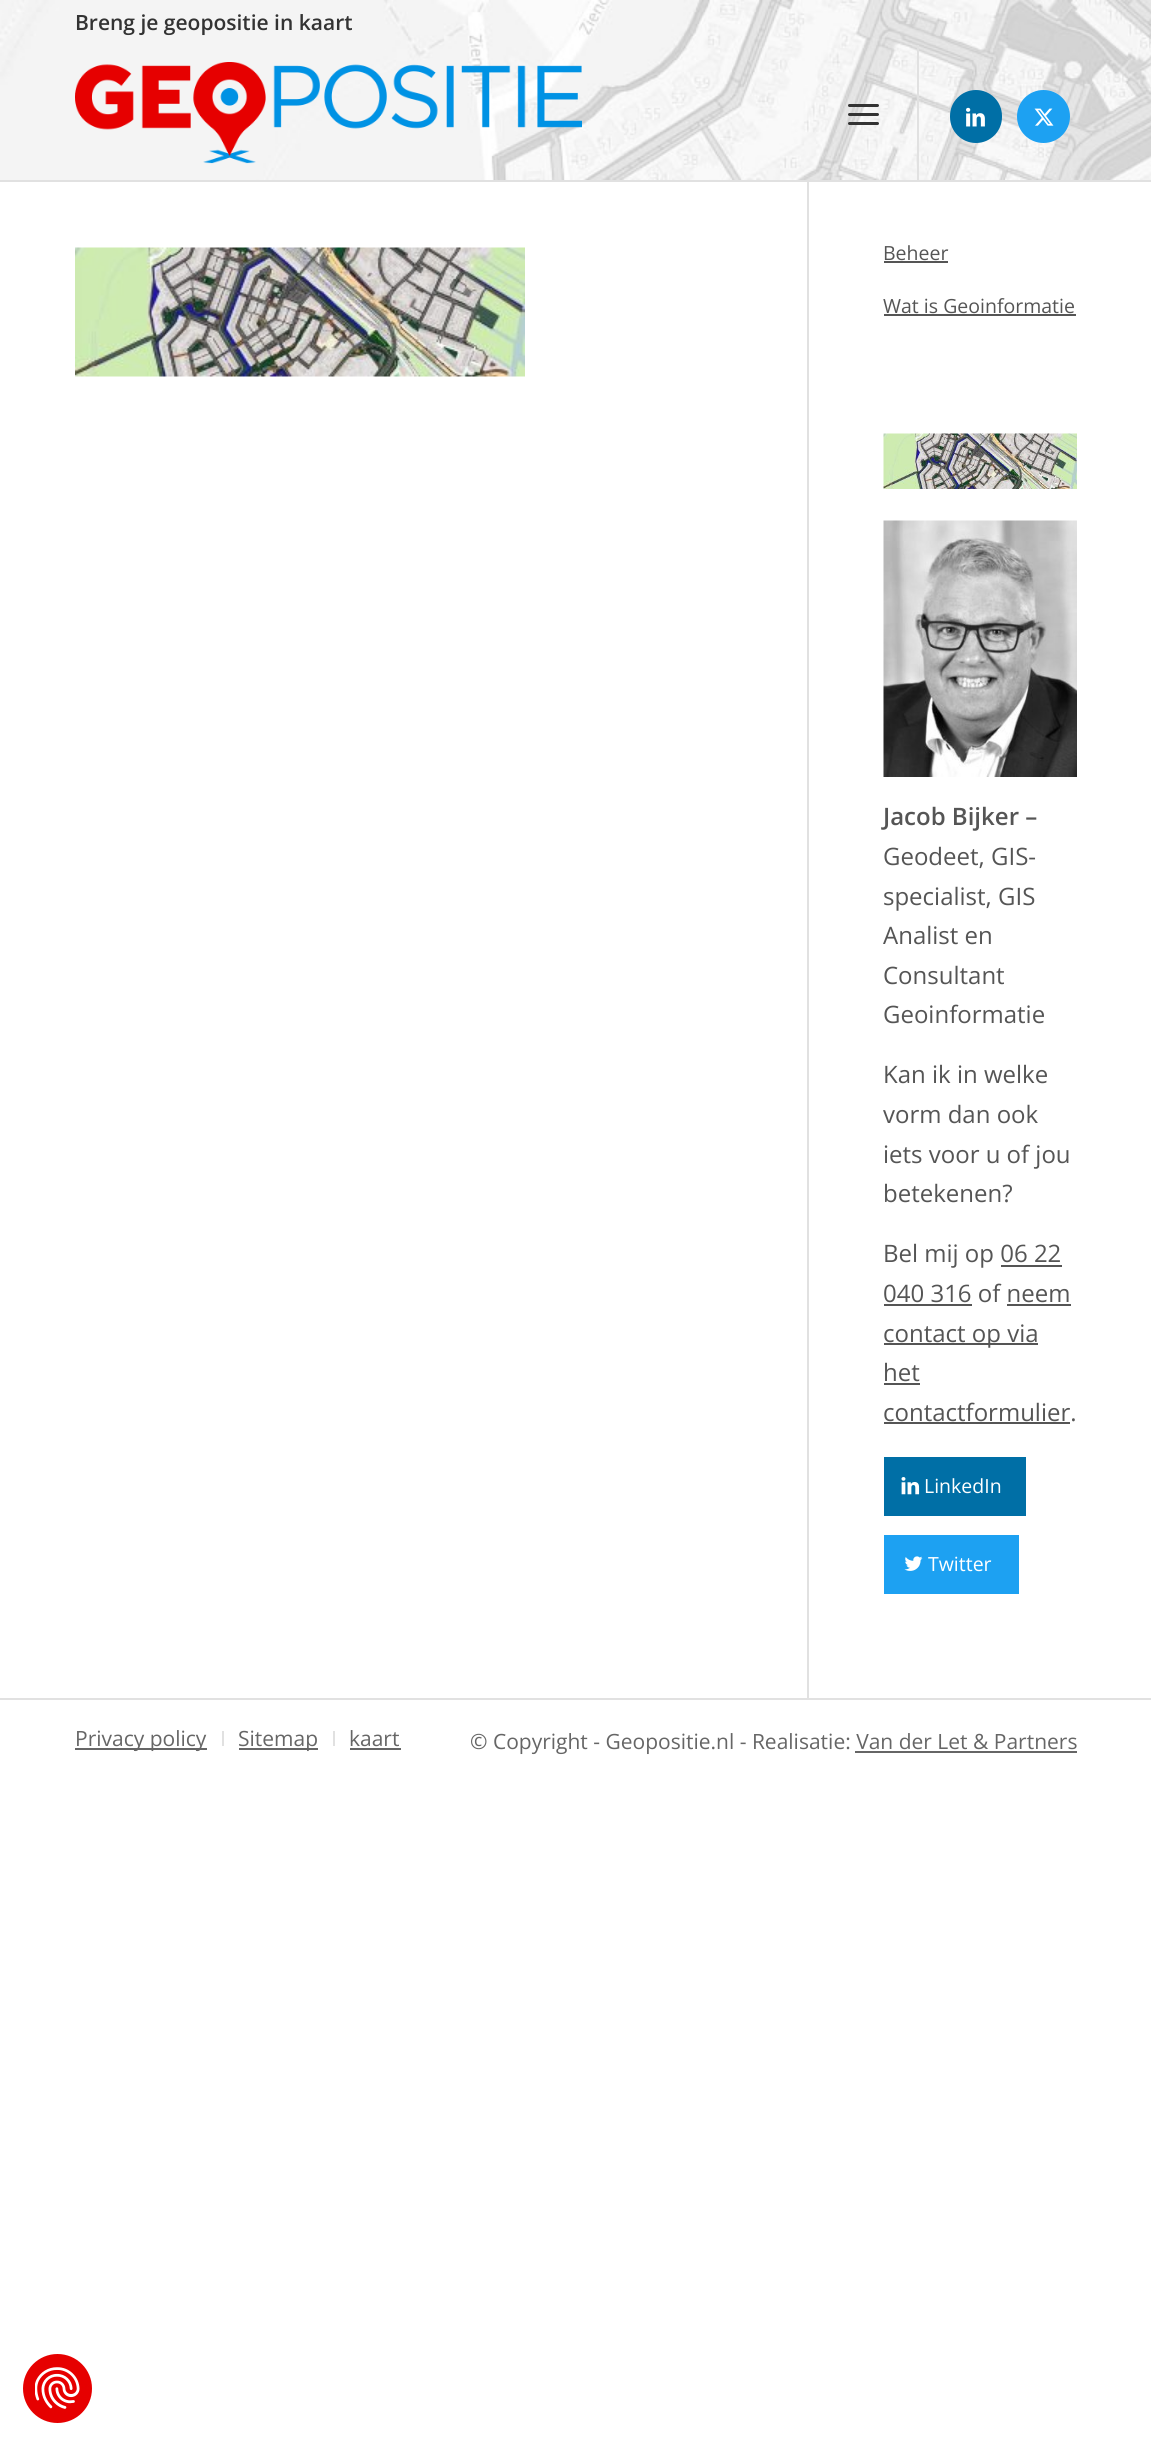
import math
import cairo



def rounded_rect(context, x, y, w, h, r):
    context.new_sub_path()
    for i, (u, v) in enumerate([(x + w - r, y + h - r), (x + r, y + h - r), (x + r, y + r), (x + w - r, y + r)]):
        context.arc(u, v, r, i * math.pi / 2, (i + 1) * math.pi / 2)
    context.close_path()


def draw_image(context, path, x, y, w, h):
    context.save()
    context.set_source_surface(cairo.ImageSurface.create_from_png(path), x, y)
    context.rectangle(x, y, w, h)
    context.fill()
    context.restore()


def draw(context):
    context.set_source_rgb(1, 1, 1)
    context.paint()
    draw_image(context, "images/1.png", 0, 0, 1151, 180)
    context.set_source_rgb(225 / 255, 225 / 255, 225 / 255)
    context.rectangle(0, 180, 1151, 2)
    context.fill()
    draw_image(context, "images/2.png", 75, 62, 507, 102)
    context.rectangle(917, 45, 2, 135)
    context.fill()
    context.set_source_rgb(51 / 255, 51 / 255, 51 / 255)
    rounded_rect(context, 848, 113, 31, 3, 1.5)
    context.fill()
    rounded_rect(context, 848, 104, 31, 3, 1.5)
    context.fill()
    rounded_rect(context, 848, 122, 31, 3, 1.5)
    context.fill()
    context.set_source_rgb(0, 111 / 255, 166 / 255)
    rounded_rect(context, 950, 90, 52, 53, 26)
    context.fill()
    draw_image(context, "images/3.png", 966, 107, 19, 20)
    context.set_source_rgb(29 / 255, 161 / 255, 242 / 255)
    context.arc(1043.5, 116.5, 26.5, 0, 2 * math.pi)
    context.fill()
    draw_image(context, "images/4.png", 1034, 108, 20, 18)
    draw_image(context, "images/5.png", 75, 247, 450, 130)
    context.set_source_rgb(225 / 255, 225 / 255, 225 / 255)
    context.rectangle(807, 182, 2, 1516)
    context.fill()
    context.set_source_rgb(85 / 255, 85 / 255, 85 / 255)
    context.rectangle(884, 261, 64, 2)
    context.fill()
    context.rectangle(884, 314, 192, 2)
    context.fill()
    draw_image(context, "images/6.png", 883, 433, 194, 56)
    draw_image(context, "images/7.png", 883, 520, 194, 257)
    context.rectangle(1001, 1265, 61, 2)
    context.fill()
    context.rectangle(884, 1304, 88, 2)
    context.fill()
    context.rectangle(1007, 1304, 64, 2)
    context.fill()
    context.rectangle(884, 1343, 154, 2)
    context.fill()
    context.rectangle(884, 1383, 36, 2)
    context.fill()
    context.rectangle(884, 1422, 186, 2)
    context.fill()
    context.set_source_rgb(0, 111 / 255, 166 / 255)
    context.rectangle(884, 1457, 142, 59)
    context.fill()
    draw_image(context, "images/8.png", 901, 1477, 19, 18)
    context.set_source_rgb(29 / 255, 161 / 255, 242 / 255)
    context.rectangle(884, 1535, 135, 59)
    context.fill()
    draw_image(context, "images/9.png", 904, 1556, 19, 15)
    context.set_source_rgb(225 / 255, 225 / 255, 225 / 255)
    context.rectangle(0, 1698, 1151, 2)
    context.fill()
    context.set_source_rgb(102 / 255, 102 / 255, 102 / 255)
    context.rectangle(75, 1748, 132, 2)
    context.fill()
    context.set_source_rgb(225 / 255, 225 / 255, 225 / 255)
    context.rectangle(222, 1731, 2, 15)
    context.fill()
    context.set_source_rgb(102 / 255, 102 / 255, 102 / 255)
    context.rectangle(239, 1748, 79, 2)
    context.fill()
    context.set_source_rgb(225 / 255, 225 / 255, 225 / 255)
    context.rectangle(333, 1731, 2, 15)
    context.fill()
    context.set_source_rgb(102 / 255, 102 / 255, 102 / 255)
    context.rectangle(350, 1748, 51, 2)
    context.fill()
    context.rectangle(855, 1751, 222, 2)
    context.fill()
    context.set_source_rgb(230 / 255, 0, 0)
    context.arc(57.5, 2388.5, 33.5, 0, 2 * math.pi)
    context.fill_preserve()
    context.stroke()
    draw_image(context, "images/10.png", 35, 2367, 45, 42)
    context.select_font_face("Open Sans SemiBold")
    context.set_font_size(21)
    context.set_source_rgb(51 / 255, 51 / 255, 51 / 255)
    context.move_to(75, 30)
    context.show_text("Breng je geopositie in kaart")
    context.select_font_face("Open Sans")
    context.set_font_size(19.5)
    context.set_source_rgb(85 / 255, 85 / 255, 85 / 255)
    context.move_to(883, 260)
    context.show_text("Beheer")
    context.move_to(883, 313)
    context.show_text("Wat is Geoinformatie")
    context.select_font_face("Open Sans SemiBold")
    context.set_font_size(24)
    context.move_to(883, 825)
    context.show_text("Jacob Bijker –")
    context.select_font_face("Open Sans")
    context.move_to(883, 865)
    context.show_text("Geodeet, GIS-")
    context.move_to(883, 905)
    context.show_text("specialist, GIS")
    context.move_to(883, 944)
    context.show_text("Analist en")
    context.move_to(883, 984)
    context.show_text("Consultant")
    context.move_to(883, 1023)
    context.show_text("Geoinformatie")
    context.move_to(883, 1083)
    context.show_text("Kan ik in welke")
    context.move_to(883, 1123)
    context.show_text("vorm dan ook")
    context.move_to(883, 1163)
    context.show_text("iets voor u of jou")
    context.move_to(883, 1202)
    context.show_text("betekenen?")
    context.move_to(883, 1262)
    context.show_text("Bel mij op 06 22")
    context.move_to(883, 1302)
    context.show_text("040 316 of neem")
    context.move_to(883, 1342)
    context.show_text("contact op via")
    context.move_to(883, 1381)
    context.show_text("het")
    context.move_to(883, 1421)
    context.show_text("contactformulier.")
    context.set_font_size(19.5)
    context.set_source_rgb(1, 1, 1)
    context.move_to(924, 1493)
    context.show_text("LinkedIn")
    context.move_to(928, 1571)
    context.show_text("Twitter")
    context.set_font_size(21)
    context.set_source_rgb(102 / 255, 102 / 255, 102 / 255)
    context.move_to(75, 1746)
    context.show_text("Privacy policy")
    context.move_to(238, 1746)
    context.show_text("Sitemap")
    context.move_to(349, 1746)
    context.show_text("kaart")
    context.move_to(470, 1749)
    context.show_text("© Copyright - Geopositie.nl - Realisatie: Van der Let & Partners")


surface = cairo.ImageSurface(cairo.Format.RGB24, 1151, 2444)
context = cairo.Context(surface)
options = cairo.FontOptions()
options.set_hint_metrics(cairo.HintMetrics.OFF)
options.set_hint_style(cairo.HintStyle.NONE)
context.set_font_options(options)
context.set_miter_limit(4)
draw(context)
surface.write_to_png("out.png")
